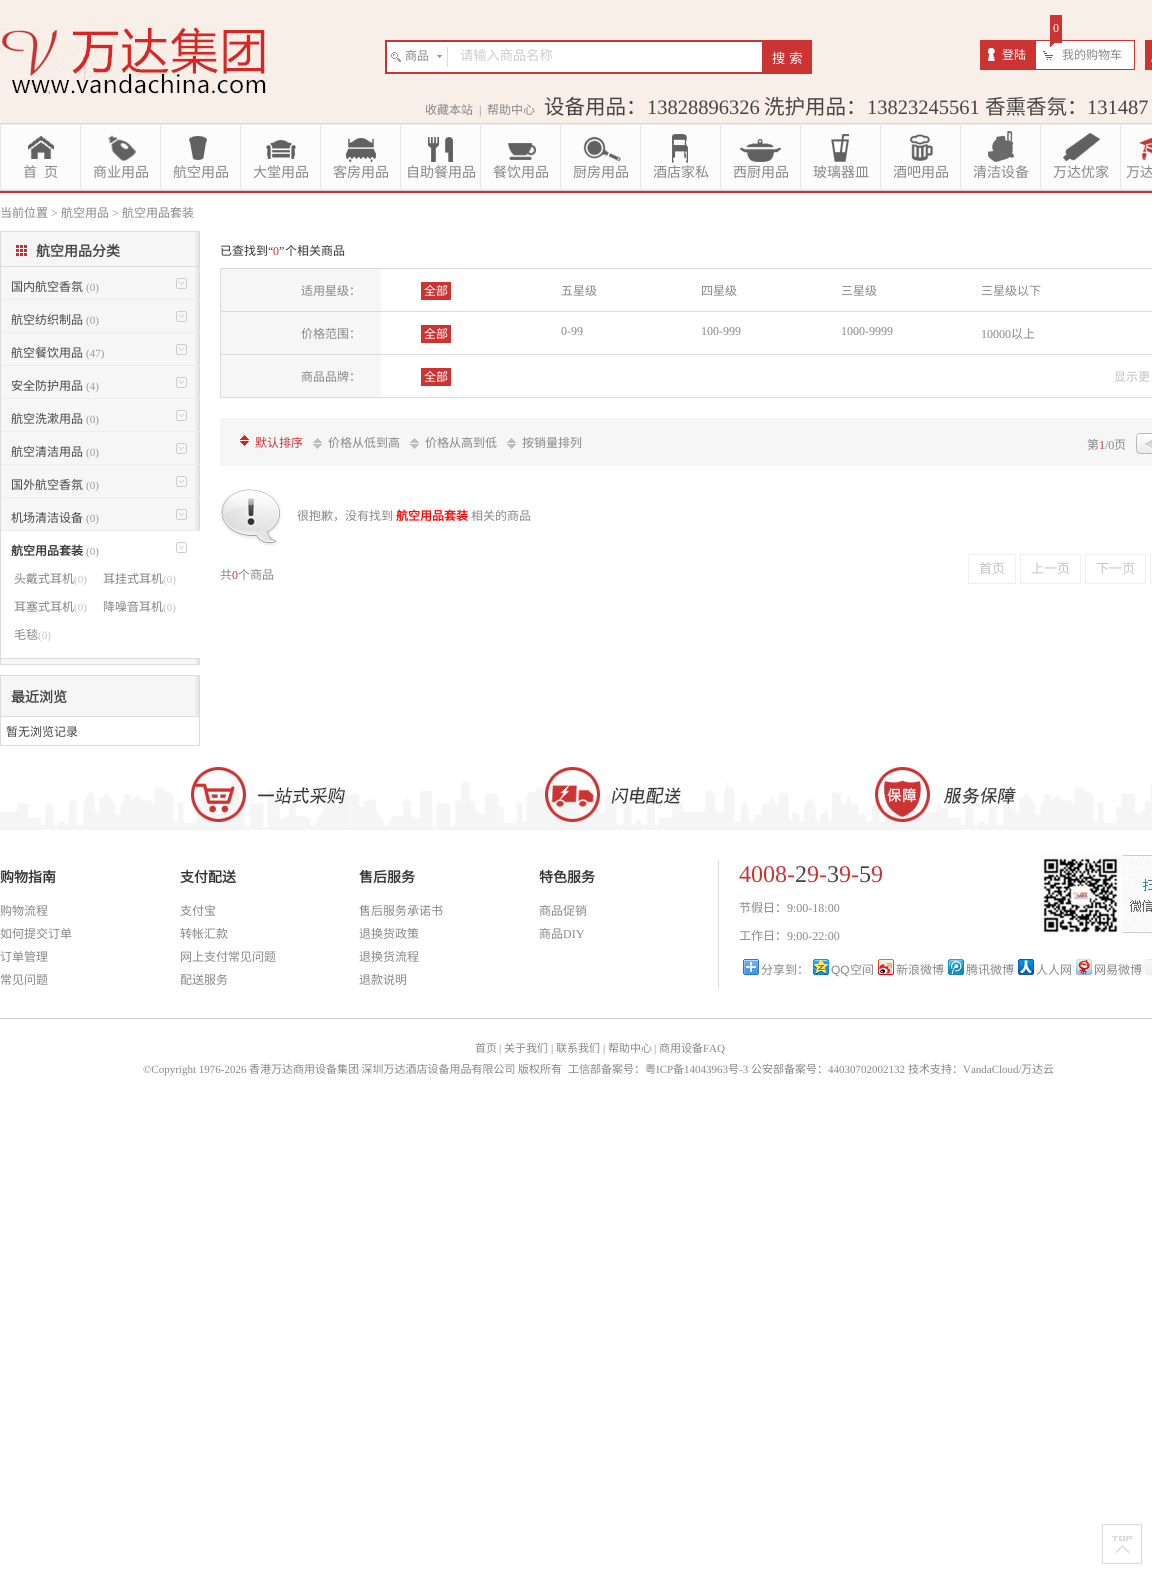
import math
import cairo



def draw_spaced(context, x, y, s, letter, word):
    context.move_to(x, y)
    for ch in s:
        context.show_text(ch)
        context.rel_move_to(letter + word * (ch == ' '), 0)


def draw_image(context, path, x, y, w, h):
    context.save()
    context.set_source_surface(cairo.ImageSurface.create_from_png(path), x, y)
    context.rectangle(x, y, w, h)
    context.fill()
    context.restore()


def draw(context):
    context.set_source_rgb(1, 1, 1)
    context.paint()
    context.set_source_rgb(247 / 255, 239 / 255, 232 / 255)
    context.rectangle(0, 0, 1152, 123)
    context.fill()
    draw_image(context, "images/1.png", 0, 22, 272, 73)
    context.set_source_rgb(1, 1, 1)
    context.rectangle(387, 42, 375, 30)
    context.fill()
    context.set_source_rgb(204 / 255, 51 / 255, 51 / 255)
    context.rectangle(385, 40, 427, 2)
    context.fill()
    context.rectangle(385, 72, 427, 2)
    context.fill()
    context.rectangle(385, 40, 2, 34)
    context.fill()
    draw_image(context, "images/2.png", 391, 47, 57, 20)
    context.rectangle(762, 42, 50, 30)
    context.fill()
    context.rectangle(980, 40, 55, 30)
    context.fill()
    draw_image(context, "images/3.png", 988, 48, 7, 13)
    context.set_source_rgb(1, 1, 1)
    context.rectangle(1036, 41, 98, 28)
    context.fill()
    draw_image(context, "images/5.png", 1043, 51, 10, 9)
    context.rectangle(1035.5, 40.5, 99, 29)
    context.set_source_rgb(204 / 255, 51 / 255, 51 / 255)
    context.set_line_width(1)
    context.stroke()
    draw_image(context, "images/4.png", 1050, 43, 4, 4)
    context.rectangle(1050, 15, 12, 28)
    context.fill()
    context.rectangle(1145, 40, 7, 30)
    context.fill()
    draw_image(context, "images/6.png", 1151, 58, 1, 4)
    draw_image(context, "images/7.png", 1, 123, 1151, 68)
    context.set_source_rgb(231 / 255, 230 / 255, 230 / 255)
    context.rectangle(0, 123, 1, 68)
    context.fill()
    draw_image(context, "images/8.png", 28, 136, 26, 23)
    context.rectangle(80, 123, 1, 68)
    context.fill()
    draw_image(context, "images/9.png", 108, 135, 28, 27)
    context.rectangle(160, 123, 1, 68)
    context.fill()
    draw_image(context, "images/10.png", 189, 136, 18, 24)
    context.rectangle(240, 123, 1, 68)
    context.fill()
    draw_image(context, "images/11.png", 266, 140, 30, 19)
    context.rectangle(320, 123, 1, 68)
    context.fill()
    draw_image(context, "images/12.png", 346, 138, 30, 24)
    context.rectangle(400, 123, 1, 68)
    context.fill()
    draw_image(context, "images/13.png", 428, 137, 25, 25)
    context.rectangle(480, 123, 1, 68)
    context.fill()
    draw_image(context, "images/14.png", 508, 143, 28, 17)
    context.rectangle(560, 123, 1, 68)
    context.fill()
    draw_image(context, "images/15.png", 583, 136, 38, 26)
    context.rectangle(640, 123, 1, 68)
    context.fill()
    draw_image(context, "images/16.png", 672, 134, 16, 29)
    context.rectangle(720, 123, 1, 68)
    context.fill()
    draw_image(context, "images/17.png", 740, 139, 41, 23)
    context.rectangle(800, 123, 1, 68)
    context.fill()
    draw_image(context, "images/18.png", 831, 134, 18, 28)
    context.rectangle(880, 123, 1, 68)
    context.fill()
    draw_image(context, "images/19.png", 910, 134, 23, 27)
    context.rectangle(960, 123, 1, 68)
    context.fill()
    draw_image(context, "images/20.png", 988, 131, 26, 31)
    context.rectangle(1040, 123, 1, 68)
    context.fill()
    draw_image(context, "images/21.png", 1063, 133, 37, 28)
    context.rectangle(1120, 123, 1, 68)
    context.fill()
    draw_image(context, "images/22.png", 1139, 137, 13, 24)
    context.set_source_rgb(204 / 255, 51 / 255, 51 / 255)
    context.rectangle(0, 191, 1152, 2)
    context.fill()
    draw_image(context, "images/23.png", 1, 232, 199, 432)
    context.set_source_rgb(219 / 255, 219 / 255, 219 / 255)
    context.rectangle(0, 231, 200, 1)
    context.fill()
    context.rectangle(0, 664, 200, 1)
    context.fill()
    context.rectangle(0, 231, 1, 434)
    context.fill()
    draw_image(context, "images/24.png", 16, 245, 11, 11)
    context.rectangle(1, 266, 199, 1)
    context.fill()
    draw_image(context, "images/25.png", 176, 278, 11, 11)
    context.set_source_rgb(236 / 255, 236 / 255, 236 / 255)
    context.rectangle(1, 299, 199, 1)
    context.fill()
    draw_image(context, "images/25.png", 176, 311, 11, 11)
    context.rectangle(1, 332, 199, 1)
    context.fill()
    draw_image(context, "images/25.png", 176, 344, 11, 11)
    context.rectangle(1, 365, 199, 1)
    context.fill()
    draw_image(context, "images/25.png", 176, 377, 11, 11)
    context.rectangle(1, 398, 199, 1)
    context.fill()
    draw_image(context, "images/25.png", 176, 410, 11, 11)
    context.rectangle(1, 431, 199, 1)
    context.fill()
    draw_image(context, "images/25.png", 176, 443, 11, 11)
    context.rectangle(1, 464, 199, 1)
    context.fill()
    draw_image(context, "images/25.png", 176, 476, 11, 11)
    context.rectangle(1, 497, 199, 1)
    context.fill()
    draw_image(context, "images/25.png", 176, 509, 11, 11)
    context.set_source_rgb(1, 1, 1)
    context.rectangle(1, 531, 199, 127)
    context.fill()
    context.set_source_rgb(236 / 255, 236 / 255, 236 / 255)
    context.rectangle(1, 530, 199, 1)
    context.fill()
    draw_image(context, "images/26.png", 176, 542, 11, 11)
    context.set_source_rgb(219 / 255, 219 / 255, 219 / 255)
    context.rectangle(1, 658, 199, 1)
    context.fill()
    draw_image(context, "images/27.png", 1, 676, 198, 40)
    context.rectangle(0.5, 675.5, 199, 41)
    context.stroke()
    context.rectangle(199, 717, 1, 29)
    context.fill()
    context.rectangle(0, 745, 200, 1)
    context.fill()
    context.rectangle(0, 717, 1, 29)
    context.fill()
    context.rectangle(220.5, 268.5, 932, 43)
    context.stroke()
    context.set_source_rgb(246 / 255, 246 / 255, 246 / 255)
    context.rectangle(221, 269, 160, 42)
    context.fill()
    context.set_source_rgb(204 / 255, 51 / 255, 51 / 255)
    context.rectangle(421, 282, 30, 18)
    context.fill()
    context.rectangle(220.5, 311.5, 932, 43)
    context.set_source_rgb(219 / 255, 219 / 255, 219 / 255)
    context.stroke()
    context.set_source_rgb(246 / 255, 246 / 255, 246 / 255)
    context.rectangle(221, 312, 160, 42)
    context.fill()
    context.set_source_rgb(204 / 255, 51 / 255, 51 / 255)
    context.rectangle(421, 325, 30, 18)
    context.fill()
    context.rectangle(220.5, 354.5, 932, 43)
    context.set_source_rgb(219 / 255, 219 / 255, 219 / 255)
    context.stroke()
    context.set_source_rgb(246 / 255, 246 / 255, 246 / 255)
    context.rectangle(221, 355, 160, 42)
    context.fill()
    context.set_source_rgb(204 / 255, 51 / 255, 51 / 255)
    context.rectangle(421, 368, 30, 18)
    context.fill()
    context.set_source_rgb(246 / 255, 246 / 255, 246 / 255)
    context.rectangle(220, 418, 932, 48)
    context.fill()
    draw_image(context, "images/28.png", 240, 435, 9, 11)
    draw_image(context, "images/29.png", 313, 438, 9, 11)
    draw_image(context, "images/29.png", 410, 438, 9, 11)
    draw_image(context, "images/29.png", 507, 438, 9, 11)
    draw_image(context, "images/30.png", 1136, 433, 16, 21)
    draw_image(context, "images/31.png", 220, 489, 62, 57)
    context.rectangle(968.5, 554.5, 47, 29)
    context.set_source_rgb(239 / 255, 239 / 255, 239 / 255)
    context.stroke()
    context.rectangle(1020.5, 554.5, 60, 29)
    context.stroke()
    context.rectangle(1085.5, 554.5, 60, 29)
    context.stroke()
    context.rectangle(1150.5, 554.5, 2, 29)
    context.stroke()
    draw_image(context, "images/32.png", 0, 767, 1152, 63)
    context.set_source_rgb(219 / 255, 219 / 255, 219 / 255)
    context.rectangle(718, 861, 1, 127)
    context.fill()
    draw_image(context, "images/33.png", 1041, 855, 111, 81)
    draw_image(context, "images/34.png", 743, 959, 16, 16)
    draw_image(context, "images/35.png", 813, 959, 16, 16)
    draw_image(context, "images/36.png", 878, 959, 16, 16)
    draw_image(context, "images/37.png", 948, 959, 16, 16)
    draw_image(context, "images/38.png", 1018, 959, 16, 16)
    draw_image(context, "images/39.png", 1076, 959, 16, 16)
    draw_image(context, "images/40.png", 1142, 959, 10, 16)
    context.set_source_rgb(204 / 255, 204 / 255, 204 / 255)
    context.rectangle(0, 1018, 1152, 1)
    context.fill()
    draw_image(context, "images/41.png", 1112, 1536, 20, 17)
    context.rectangle(1102.5, 1524.5, 39, 39)
    context.set_source_rgb(219 / 255, 219 / 255, 219 / 255)
    context.stroke()
    context.select_font_face("Noto Sans CJK SC")
    context.set_font_size(12)
    context.set_source_rgb(135 / 255, 135 / 255, 135 / 255)
    context.move_to(405, 60)
    context.show_text("商品")
    context.set_font_size(13.25)
    context.set_source_rgb(204 / 255, 204 / 255, 204 / 255)
    context.move_to(460, 60)
    context.show_text("请输入商品名称")
    context.set_source_rgb(1, 1, 1)
    draw_spaced(context, 772, 63, "搜 索", 0, 1)
    context.set_font_size(12)
    context.move_to(1002, 59)
    context.show_text("登陆")
    context.select_font_face("Liberation Serif")
    context.move_to(1053, 32)
    context.show_text("0")
    context.select_font_face("Noto Sans CJK SC")
    context.set_source_rgb(135 / 255, 135 / 255, 135 / 255)
    context.move_to(1062, 59)
    context.show_text("我的购物车")
    context.move_to(425, 114)
    context.show_text("收藏本站")
    context.select_font_face("Liberation Serif")
    context.move_to(479, 114)
    context.show_text("|")
    context.select_font_face("Noto Sans CJK SC")
    context.move_to(487, 114)
    context.show_text("帮助中心")
    context.set_font_size(20.5)
    context.set_source_rgb(70 / 255, 70 / 255, 70 / 255)
    context.move_to(544, 114)
    context.show_text("设备用品：")
    context.select_font_face("Liberation Serif")
    context.move_to(647, 114)
    context.show_text("13828896326")
    context.select_font_face("Noto Sans CJK SC")
    context.move_to(764, 114)
    context.show_text("洗护用品：")
    context.select_font_face("Liberation Serif")
    context.move_to(867, 114)
    context.show_text("13823245561")
    context.select_font_face("Noto Sans CJK SC")
    context.move_to(985, 114)
    context.show_text("香熏香氛：")
    context.select_font_face("Liberation Serif")
    context.move_to(1087, 114)
    context.show_text("131487")
    context.select_font_face("Noto Sans CJK SC")
    context.set_font_size(14)
    context.set_source_rgb(135 / 255, 135 / 255, 135 / 255)
    context.move_to(23, 177)
    context.show_text("首")
    context.move_to(44, 177)
    context.show_text("页")
    context.move_to(93, 177)
    context.show_text("商业用品")
    context.move_to(173, 177)
    context.show_text("航空用品")
    context.move_to(253, 177)
    context.show_text("大堂用品")
    context.move_to(333, 177)
    context.show_text("客房用品")
    context.move_to(406, 177)
    context.show_text("自助餐用品")
    context.move_to(493, 177)
    context.show_text("餐饮用品")
    context.move_to(573, 177)
    context.show_text("厨房用品")
    context.move_to(653, 177)
    context.show_text("酒店家私")
    context.move_to(733, 177)
    context.show_text("西厨用品")
    context.move_to(813, 177)
    context.show_text("玻璃器皿")
    context.move_to(893, 177)
    context.show_text("酒吧用品")
    context.move_to(973, 177)
    context.show_text("清洁设备")
    context.move_to(1053, 177)
    context.show_text("万达优家")
    context.move_to(1126, 177)
    context.show_text("万达")
    context.set_font_size(12)
    context.move_to(0, 217)
    context.show_text("当前位置")
    context.select_font_face("Liberation Serif")
    context.move_to(51, 217)
    context.show_text(">")
    context.select_font_face("Noto Sans CJK SC")
    context.move_to(61, 217)
    context.show_text("航空用品")
    context.select_font_face("Liberation Serif")
    context.move_to(112, 217)
    context.show_text(">")
    context.select_font_face("Noto Sans CJK SC")
    context.move_to(122, 217)
    context.show_text("航空用品套装")
    context.select_font_face("Noto Sans CJK SC", cairo.FontSlant.NORMAL, cairo.FontWeight.BOLD)
    context.set_font_size(14)
    context.set_source_rgb(70 / 255, 70 / 255, 70 / 255)
    context.move_to(36, 256)
    context.show_text("航空用品分类")
    context.select_font_face("Noto Sans CJK SC")
    context.set_font_size(12)
    context.move_to(11, 291)
    context.show_text("国内航空香氛")
    context.select_font_face("Liberation Serif")
    context.set_font_size(11)
    context.set_source_rgb(154 / 255, 154 / 255, 154 / 255)
    context.move_to(86, 291)
    context.show_text("(0)")
    context.select_font_face("Noto Sans CJK SC")
    context.set_font_size(12)
    context.set_source_rgb(70 / 255, 70 / 255, 70 / 255)
    context.move_to(11, 324)
    context.show_text("航空纺织制品")
    context.select_font_face("Liberation Serif")
    context.set_font_size(11)
    context.set_source_rgb(154 / 255, 154 / 255, 154 / 255)
    context.move_to(86, 324)
    context.show_text("(0)")
    context.select_font_face("Noto Sans CJK SC")
    context.set_font_size(12)
    context.set_source_rgb(70 / 255, 70 / 255, 70 / 255)
    context.move_to(11, 357)
    context.show_text("航空餐饮用品")
    context.select_font_face("Liberation Serif")
    context.set_font_size(11)
    context.set_source_rgb(154 / 255, 154 / 255, 154 / 255)
    context.move_to(86, 357)
    context.show_text("(47)")
    context.select_font_face("Noto Sans CJK SC")
    context.set_font_size(12)
    context.set_source_rgb(70 / 255, 70 / 255, 70 / 255)
    context.move_to(11, 390)
    context.show_text("安全防护用品")
    context.select_font_face("Liberation Serif")
    context.set_font_size(11)
    context.set_source_rgb(154 / 255, 154 / 255, 154 / 255)
    context.move_to(86, 390)
    context.show_text("(4)")
    context.select_font_face("Noto Sans CJK SC")
    context.set_font_size(12)
    context.set_source_rgb(70 / 255, 70 / 255, 70 / 255)
    context.move_to(11, 423)
    context.show_text("航空洗漱用品")
    context.select_font_face("Liberation Serif")
    context.set_font_size(11)
    context.set_source_rgb(154 / 255, 154 / 255, 154 / 255)
    context.move_to(86, 423)
    context.show_text("(0)")
    context.select_font_face("Noto Sans CJK SC")
    context.set_font_size(12)
    context.set_source_rgb(70 / 255, 70 / 255, 70 / 255)
    context.move_to(11, 456)
    context.show_text("航空清洁用品")
    context.select_font_face("Liberation Serif")
    context.set_font_size(11)
    context.set_source_rgb(154 / 255, 154 / 255, 154 / 255)
    context.move_to(86, 456)
    context.show_text("(0)")
    context.select_font_face("Noto Sans CJK SC")
    context.set_font_size(12)
    context.set_source_rgb(70 / 255, 70 / 255, 70 / 255)
    context.move_to(11, 489)
    context.show_text("国外航空香氛")
    context.select_font_face("Liberation Serif")
    context.set_font_size(11)
    context.set_source_rgb(154 / 255, 154 / 255, 154 / 255)
    context.move_to(86, 489)
    context.show_text("(0)")
    context.select_font_face("Noto Sans CJK SC")
    context.set_font_size(12)
    context.set_source_rgb(70 / 255, 70 / 255, 70 / 255)
    context.move_to(11, 522)
    context.show_text("机场清洁设备")
    context.select_font_face("Liberation Serif")
    context.set_font_size(11)
    context.set_source_rgb(154 / 255, 154 / 255, 154 / 255)
    context.move_to(86, 522)
    context.show_text("(0)")
    context.select_font_face("Noto Sans CJK SC", cairo.FontSlant.NORMAL, cairo.FontWeight.BOLD)
    context.set_font_size(12)
    context.set_source_rgb(51 / 255, 51 / 255, 51 / 255)
    context.move_to(11, 555)
    context.show_text("航空用品套装")
    context.select_font_face("Liberation Serif")
    context.set_font_size(11)
    context.set_source_rgb(154 / 255, 154 / 255, 154 / 255)
    context.move_to(86, 555)
    context.show_text("(0)")
    context.select_font_face("Noto Sans CJK SC")
    context.set_font_size(12)
    context.set_source_rgb(138 / 255, 129 / 255, 129 / 255)
    context.move_to(14, 583)
    context.show_text("头戴式耳机")
    context.select_font_face("Liberation Serif")
    context.set_font_size(11)
    context.set_source_rgb(194 / 255, 194 / 255, 194 / 255)
    context.move_to(74, 583)
    context.show_text("(0)")
    context.select_font_face("Noto Sans CJK SC")
    context.set_font_size(12)
    context.set_source_rgb(138 / 255, 129 / 255, 129 / 255)
    context.move_to(103, 583)
    context.show_text("耳挂式耳机")
    context.select_font_face("Liberation Serif")
    context.set_font_size(11)
    context.set_source_rgb(194 / 255, 194 / 255, 194 / 255)
    context.move_to(163, 583)
    context.show_text("(0)")
    context.select_font_face("Noto Sans CJK SC")
    context.set_font_size(12)
    context.set_source_rgb(138 / 255, 129 / 255, 129 / 255)
    context.move_to(14, 611)
    context.show_text("耳塞式耳机")
    context.select_font_face("Liberation Serif")
    context.set_font_size(11)
    context.set_source_rgb(194 / 255, 194 / 255, 194 / 255)
    context.move_to(74, 611)
    context.show_text("(0)")
    context.select_font_face("Noto Sans CJK SC")
    context.set_font_size(12)
    context.set_source_rgb(138 / 255, 129 / 255, 129 / 255)
    context.move_to(103, 611)
    context.show_text("降噪音耳机")
    context.select_font_face("Liberation Serif")
    context.set_font_size(11)
    context.set_source_rgb(194 / 255, 194 / 255, 194 / 255)
    context.move_to(163, 611)
    context.show_text("(0)")
    context.select_font_face("Noto Sans CJK SC")
    context.set_font_size(12)
    context.set_source_rgb(138 / 255, 129 / 255, 129 / 255)
    context.move_to(14, 639)
    context.show_text("毛毯")
    context.select_font_face("Liberation Serif")
    context.set_font_size(11)
    context.set_source_rgb(194 / 255, 194 / 255, 194 / 255)
    context.move_to(38, 639)
    context.show_text("(0)")
    context.select_font_face("Noto Sans CJK SC", cairo.FontSlant.NORMAL, cairo.FontWeight.BOLD)
    context.set_font_size(14)
    context.set_source_rgb(70 / 255, 70 / 255, 70 / 255)
    context.move_to(11, 702)
    context.show_text("最近浏览")
    context.select_font_face("Noto Sans CJK SC")
    context.set_font_size(12)
    context.move_to(6, 736)
    context.show_text("暂无浏览记录")
    context.set_source_rgb(51 / 255, 51 / 255, 51 / 255)
    context.move_to(220, 255)
    context.show_text("已查找到")
    context.select_font_face("Liberation Serif")
    context.move_to(268, 255)
    context.show_text("“")
    context.set_source_rgb(204 / 255, 51 / 255, 51 / 255)
    context.move_to(273, 255)
    context.show_text("0")
    context.set_source_rgb(51 / 255, 51 / 255, 51 / 255)
    context.move_to(279, 255)
    context.show_text("”")
    context.select_font_face("Noto Sans CJK SC")
    context.move_to(285, 255)
    context.show_text("个相关商品")
    context.set_source_rgb(135 / 255, 135 / 255, 135 / 255)
    context.move_to(301, 295)
    context.show_text("适用星级：")
    context.set_source_rgb(1, 1, 1)
    context.move_to(424, 295)
    context.show_text("全部")
    context.set_source_rgb(135 / 255, 135 / 255, 135 / 255)
    context.move_to(561, 295)
    context.show_text("五星级")
    context.move_to(701, 295)
    context.show_text("四星级")
    context.move_to(841, 295)
    context.show_text("三星级")
    context.move_to(981, 295)
    context.show_text("三星级以下")
    context.move_to(301, 338)
    context.show_text("价格范围：")
    context.set_source_rgb(1, 1, 1)
    context.move_to(424, 338)
    context.show_text("全部")
    context.select_font_face("Liberation Serif")
    context.set_source_rgb(135 / 255, 135 / 255, 135 / 255)
    context.move_to(561, 335)
    context.show_text("0-99")
    context.move_to(701, 335)
    context.show_text("100-999")
    context.move_to(841, 335)
    context.show_text("1000-9999")
    context.move_to(981, 338)
    context.show_text("10000")
    context.select_font_face("Noto Sans CJK SC")
    context.move_to(1011, 338)
    context.show_text("以上")
    context.move_to(301, 381)
    context.show_text("商品品牌：")
    context.set_source_rgb(1, 1, 1)
    context.move_to(424, 381)
    context.show_text("全部")
    context.set_source_rgb(194 / 255, 194 / 255, 194 / 255)
    context.move_to(1114, 381)
    context.show_text("显示更")
    context.set_source_rgb(204 / 255, 51 / 255, 51 / 255)
    context.move_to(255, 447)
    context.show_text("默认排序")
    context.set_source_rgb(135 / 255, 135 / 255, 135 / 255)
    context.move_to(328, 447)
    context.show_text("价格从低到高")
    context.move_to(425, 447)
    context.show_text("价格从高到低")
    context.move_to(522, 447)
    context.show_text("按销量排列")
    context.move_to(1087, 449)
    context.show_text("第")
    context.select_font_face("Liberation Serif")
    context.set_source_rgb(204 / 255, 51 / 255, 51 / 255)
    context.move_to(1099, 449)
    context.show_text("1")
    context.set_source_rgb(135 / 255, 135 / 255, 135 / 255)
    context.move_to(1105, 449)
    context.show_text("/0")
    context.select_font_face("Noto Sans CJK SC")
    context.move_to(1114, 449)
    context.show_text("页")
    context.move_to(297, 520)
    context.show_text("很抱歉，没有找到")
    context.select_font_face("Noto Sans CJK SC", cairo.FontSlant.NORMAL, cairo.FontWeight.BOLD)
    context.set_source_rgb(1, 0, 0)
    context.move_to(396, 520)
    context.show_text("航空用品套装")
    context.select_font_face("Noto Sans CJK SC")
    context.set_source_rgb(135 / 255, 135 / 255, 135 / 255)
    context.move_to(471, 520)
    context.show_text("相关的商品")
    context.move_to(220, 579)
    context.show_text("共")
    context.select_font_face("Liberation Serif")
    context.set_source_rgb(204 / 255, 51 / 255, 51 / 255)
    context.move_to(232, 579)
    context.show_text("0")
    context.select_font_face("Noto Sans CJK SC")
    context.set_source_rgb(135 / 255, 135 / 255, 135 / 255)
    context.move_to(238, 579)
    context.show_text("个商品")
    context.set_font_size(13)
    context.set_source_rgb(194 / 255, 194 / 255, 194 / 255)
    context.move_to(979, 573)
    context.show_text("首页")
    context.move_to(1031, 573)
    context.show_text("上一页")
    context.move_to(1096, 573)
    context.show_text("下一页")
    context.select_font_face("Noto Sans CJK SC", cairo.FontSlant.NORMAL, cairo.FontWeight.BOLD)
    context.set_font_size(14)
    context.set_source_rgb(51 / 255, 51 / 255, 51 / 255)
    context.move_to(0, 882)
    context.show_text("购物指南")
    context.select_font_face("Noto Sans CJK SC")
    context.set_font_size(12)
    context.set_source_rgb(135 / 255, 135 / 255, 135 / 255)
    context.move_to(0, 915)
    context.show_text("购物流程")
    context.move_to(0, 938)
    context.show_text("如何提交订单")
    context.move_to(0, 961)
    context.show_text("订单管理")
    context.move_to(0, 984)
    context.show_text("常见问题")
    context.select_font_face("Noto Sans CJK SC", cairo.FontSlant.NORMAL, cairo.FontWeight.BOLD)
    context.set_font_size(14)
    context.set_source_rgb(51 / 255, 51 / 255, 51 / 255)
    context.move_to(180, 882)
    context.show_text("支付配送")
    context.select_font_face("Noto Sans CJK SC")
    context.set_font_size(12)
    context.set_source_rgb(135 / 255, 135 / 255, 135 / 255)
    context.move_to(180, 915)
    context.show_text("支付宝")
    context.move_to(180, 938)
    context.show_text("转帐汇款")
    context.move_to(180, 961)
    context.show_text("网上支付常见问题")
    context.move_to(180, 984)
    context.show_text("配送服务")
    context.select_font_face("Noto Sans CJK SC", cairo.FontSlant.NORMAL, cairo.FontWeight.BOLD)
    context.set_font_size(14)
    context.set_source_rgb(51 / 255, 51 / 255, 51 / 255)
    context.move_to(359, 882)
    context.show_text("售后服务")
    context.select_font_face("Noto Sans CJK SC")
    context.set_font_size(12)
    context.set_source_rgb(135 / 255, 135 / 255, 135 / 255)
    context.move_to(359, 915)
    context.show_text("售后服务承诺书")
    context.move_to(359, 938)
    context.show_text("退换货政策")
    context.move_to(359, 961)
    context.show_text("退换货流程")
    context.move_to(359, 984)
    context.show_text("退款说明")
    context.select_font_face("Noto Sans CJK SC", cairo.FontSlant.NORMAL, cairo.FontWeight.BOLD)
    context.set_font_size(14)
    context.set_source_rgb(51 / 255, 51 / 255, 51 / 255)
    context.move_to(539, 882)
    context.show_text("特色服务")
    context.select_font_face("Noto Sans CJK SC")
    context.set_font_size(12)
    context.set_source_rgb(135 / 255, 135 / 255, 135 / 255)
    context.move_to(539, 915)
    context.show_text("商品促销")
    context.move_to(539, 938)
    context.show_text("商品")
    context.select_font_face("Liberation Serif")
    context.move_to(563, 938)
    context.show_text("DIY")
    context.set_font_size(24)
    context.set_source_rgb(204 / 255, 51 / 255, 51 / 255)
    context.move_to(739, 882)
    context.show_text("4008-")
    context.set_source_rgb(70 / 255, 70 / 255, 70 / 255)
    context.move_to(795, 882)
    context.show_text("2")
    context.set_source_rgb(204 / 255, 51 / 255, 51 / 255)
    context.move_to(807, 882)
    context.show_text("9-")
    context.set_source_rgb(70 / 255, 70 / 255, 70 / 255)
    context.move_to(827, 882)
    context.show_text("3")
    context.set_source_rgb(204 / 255, 51 / 255, 51 / 255)
    context.move_to(839, 882)
    context.show_text("9-")
    context.set_source_rgb(70 / 255, 70 / 255, 70 / 255)
    context.move_to(859, 882)
    context.show_text("5")
    context.set_source_rgb(204 / 255, 51 / 255, 51 / 255)
    context.move_to(871, 882)
    context.show_text("9")
    context.select_font_face("Noto Sans CJK SC")
    context.set_font_size(12)
    context.set_source_rgb(135 / 255, 135 / 255, 135 / 255)
    context.move_to(739, 912)
    context.show_text("节假日：")
    context.select_font_face("Liberation Serif")
    context.move_to(787, 912)
    context.show_text("9:00-18:00")
    context.select_font_face("Noto Sans CJK SC")
    context.move_to(739, 940)
    context.show_text("工作日：")
    context.select_font_face("Liberation Serif")
    context.move_to(787, 940)
    context.show_text("9:00-22:00")
    context.select_font_face("Noto Sans CJK SC")
    context.move_to(761, 974)
    context.show_text("分享到：")
    context.select_font_face("Liberation Sans")
    context.move_to(831, 974)
    context.show_text("QQ")
    context.select_font_face("Noto Sans CJK SC")
    context.move_to(850, 974)
    context.show_text("空间")
    context.move_to(896, 974)
    context.show_text("新浪微博")
    context.move_to(966, 974)
    context.show_text("腾讯微博")
    context.move_to(1036, 974)
    context.show_text("人人网")
    context.move_to(1094, 974)
    context.show_text("网易微博")
    context.set_font_size(11)
    context.move_to(475, 1052)
    context.show_text("首页")
    context.select_font_face("Liberation Serif")
    context.move_to(499, 1052)
    context.show_text("|")
    context.select_font_face("Noto Sans CJK SC")
    context.move_to(504, 1052)
    context.show_text("关于我们")
    context.select_font_face("Liberation Serif")
    context.move_to(551, 1052)
    context.show_text("|")
    context.select_font_face("Noto Sans CJK SC")
    context.move_to(556, 1052)
    context.show_text("联系我们")
    context.select_font_face("Liberation Serif")
    context.move_to(603, 1052)
    context.show_text("|")
    context.select_font_face("Noto Sans CJK SC")
    context.move_to(608, 1052)
    context.show_text("帮助中心")
    context.select_font_face("Liberation Serif")
    context.move_to(654, 1052)
    context.show_text("|")
    context.select_font_face("Noto Sans CJK SC")
    context.move_to(659, 1052)
    context.show_text("商用设备")
    context.select_font_face("Liberation Serif")
    context.move_to(703, 1052)
    context.show_text("FAQ")
    context.move_to(143, 1073)
    context.show_text("©Copyright 1976-2026")
    context.select_font_face("Noto Sans CJK SC")
    context.move_to(249, 1073)
    context.show_text("香港万达商用设备集团 深圳万达酒店设备用品有限公司 版权所有")
    context.move_to(568, 1073)
    context.show_text("工信部备案号：粤")
    context.select_font_face("Liberation Serif")
    context.move_to(656, 1073)
    context.show_text("ICP")
    context.select_font_face("Noto Sans CJK SC")
    context.move_to(673, 1073)
    context.show_text("备")
    context.select_font_face("Liberation Serif")
    context.move_to(684, 1073)
    context.show_text("14043963")
    context.select_font_face("Noto Sans CJK SC")
    context.move_to(728, 1073)
    context.show_text("号")
    context.select_font_face("Liberation Serif")
    context.move_to(739, 1073)
    context.show_text("-3")
    context.select_font_face("Noto Sans CJK SC")
    context.move_to(751, 1073)
    context.show_text("公安部备案号：")
    context.select_font_face("Liberation Serif")
    context.move_to(828, 1073)
    context.show_text("44030702002132")
    context.select_font_face("Noto Sans CJK SC")
    context.move_to(908, 1073)
    context.show_text("技术支持：")
    context.select_font_face("Liberation Serif")
    context.move_to(963, 1073)
    context.show_text("VandaCloud/")
    context.select_font_face("Noto Sans CJK SC")
    context.move_to(1021, 1073)
    context.show_text("万达云")


surface = cairo.ImageSurface(cairo.Format.RGB24, 1152, 1574)
context = cairo.Context(surface)
options = cairo.FontOptions()
options.set_hint_metrics(cairo.HintMetrics.OFF)
options.set_hint_style(cairo.HintStyle.NONE)
context.set_font_options(options)
context.set_miter_limit(4)
draw(context)
surface.write_to_png("out.png")
